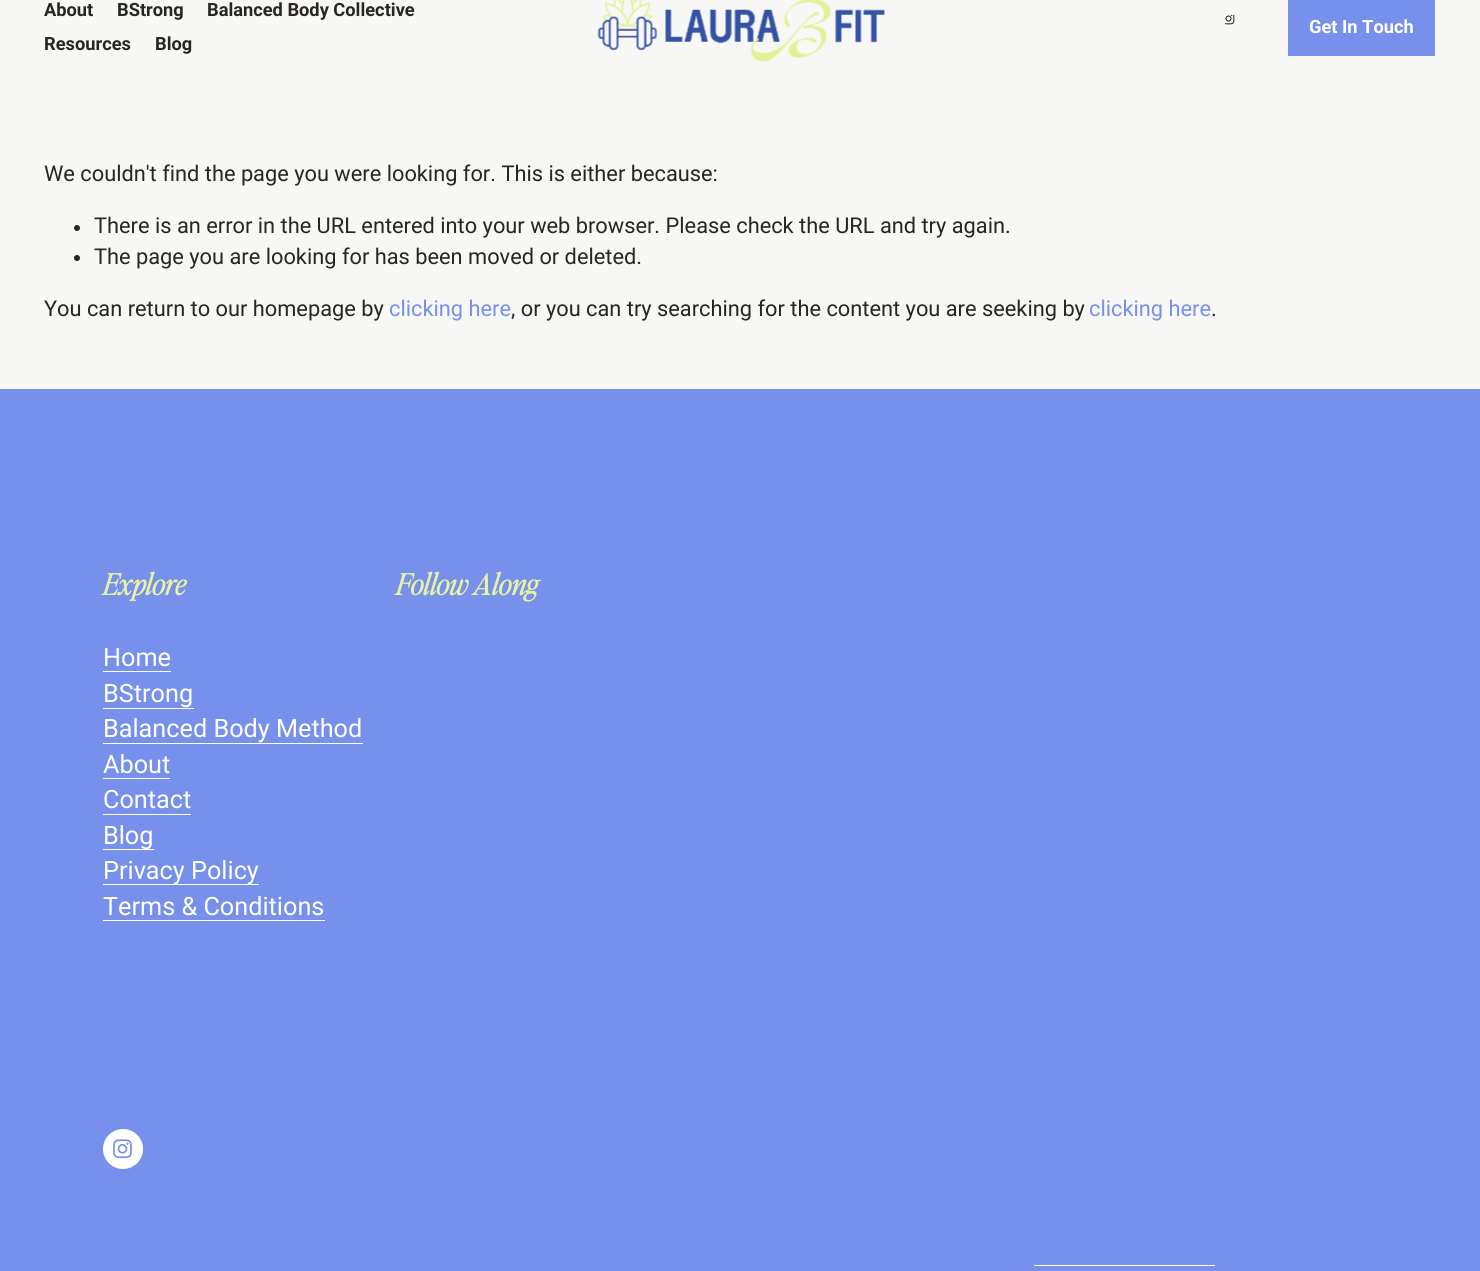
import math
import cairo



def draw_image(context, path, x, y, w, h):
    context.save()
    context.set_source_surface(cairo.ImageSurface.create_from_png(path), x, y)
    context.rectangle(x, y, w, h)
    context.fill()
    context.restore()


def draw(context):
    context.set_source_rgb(247 / 255, 247 / 255, 245 / 255)
    context.paint()
    draw_image(context, "images/1.png", 597, 0, 288, 62)
    draw_image(context, "images/2.png", 1225, 15, 10, 10)
    context.set_source_rgb(119 / 255, 144 / 255, 235 / 255)
    context.rectangle(1288, 0, 147, 56)
    context.fill()
    context.set_source_rgb(41 / 255, 38 / 255, 33 / 255)
    context.arc(77, 228, 3, 0, 2 * math.pi)
    context.fill()
    context.arc(77, 258, 3, 0, 2 * math.pi)
    context.fill()
    context.set_source_rgb(119 / 255, 144 / 255, 235 / 255)
    context.rectangle(0, 389, 1480, 882)
    context.fill()
    context.set_source_rgb(1, 1, 1)
    context.rectangle(103, 671, 68, 1)
    context.fill()
    context.rectangle(103, 708, 91, 1)
    context.fill()
    context.rectangle(103, 743, 260, 1)
    context.fill()
    context.rectangle(103, 778, 67, 1)
    context.fill()
    context.rectangle(103, 814, 88, 1)
    context.fill()
    context.rectangle(103, 849, 51, 1)
    context.fill()
    context.rectangle(103, 884, 156, 1)
    context.fill()
    context.rectangle(103, 920, 222, 1)
    context.fill()
    context.arc(123, 1149, 20, 0, 2 * math.pi)
    context.fill()
    draw_image(context, "images/3.png", 113, 1139, 19, 20)
    context.rectangle(1034, 1265, 181, 1)
    context.fill()
    context.select_font_face("Roboto", cairo.FontSlant.NORMAL, cairo.FontWeight.BOLD)
    context.set_font_size(18.25)
    context.set_source_rgb(41 / 255, 38 / 255, 33 / 255)
    context.move_to(44, 16)
    context.show_text("About")
    context.move_to(117, 16)
    context.show_text("BStrong")
    context.move_to(207, 16)
    context.show_text("Balanced Body Collective")
    context.move_to(44, 50)
    context.show_text("Resources")
    context.move_to(155, 50)
    context.show_text("Blog")
    context.set_source_rgb(1, 1, 1)
    context.move_to(1309, 33)
    context.show_text("Get In Touch")
    context.select_font_face("Roboto")
    context.set_font_size(21.8)
    context.set_source_rgb(41 / 255, 38 / 255, 33 / 255)
    context.move_to(44, 181)
    context.show_text("We couldn't find the page you were looking for. This is either because:")
    context.move_to(94, 233)
    context.show_text("There is an error in the URL entered into your web browser. Please check the URL and try again.")
    context.move_to(94, 264)
    context.show_text("The page you are looking for has been moved or deleted.")
    context.move_to(44, 316)
    context.show_text("You can return to our homepage by")
    context.set_source_rgb(119 / 255, 144 / 255, 235 / 255)
    context.move_to(389, 316)
    context.show_text("clicking here")
    context.set_source_rgb(41 / 255, 38 / 255, 33 / 255)
    context.move_to(511, 316)
    context.show_text(", or you can try searching for the content you are seeking by")
    context.set_source_rgb(119 / 255, 144 / 255, 235 / 255)
    context.move_to(1089, 316)
    context.show_text("clicking here")
    context.set_source_rgb(41 / 255, 38 / 255, 33 / 255)
    context.move_to(1211, 316)
    context.show_text(".")
    context.select_font_face("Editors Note", cairo.FontSlant.ITALIC, cairo.FontWeight.BOLD)
    context.set_font_size(29)
    context.set_source_rgb(229 / 255, 244 / 255, 161 / 255)
    context.move_to(103, 595)
    context.show_text("Explore")
    context.select_font_face("Roboto")
    context.set_font_size(25.25)
    context.set_source_rgb(1, 1, 1)
    context.move_to(103, 666)
    context.show_text("Home")
    context.move_to(103, 702)
    context.show_text("BStrong")
    context.move_to(103, 737)
    context.show_text("Balanced Body Method")
    context.move_to(103, 773)
    context.show_text("About")
    context.move_to(103, 808)
    context.show_text("Contact")
    context.move_to(103, 844)
    context.show_text("Blog")
    context.move_to(103, 879)
    context.show_text("Privacy Policy")
    context.move_to(103, 915)
    context.show_text("Terms & Conditions")
    context.select_font_face("Editors Note", cairo.FontSlant.ITALIC, cairo.FontWeight.BOLD)
    context.set_font_size(29)
    context.set_source_rgb(229 / 255, 244 / 255, 161 / 255)
    context.move_to(396, 595)
    context.show_text("Follow Along")


surface = cairo.ImageSurface(cairo.Format.RGB24, 1480, 1271)
context = cairo.Context(surface)
options = cairo.FontOptions()
options.set_hint_metrics(cairo.HintMetrics.OFF)
options.set_hint_style(cairo.HintStyle.NONE)
context.set_font_options(options)
context.set_miter_limit(4)
draw(context)
surface.write_to_png("out.png")
